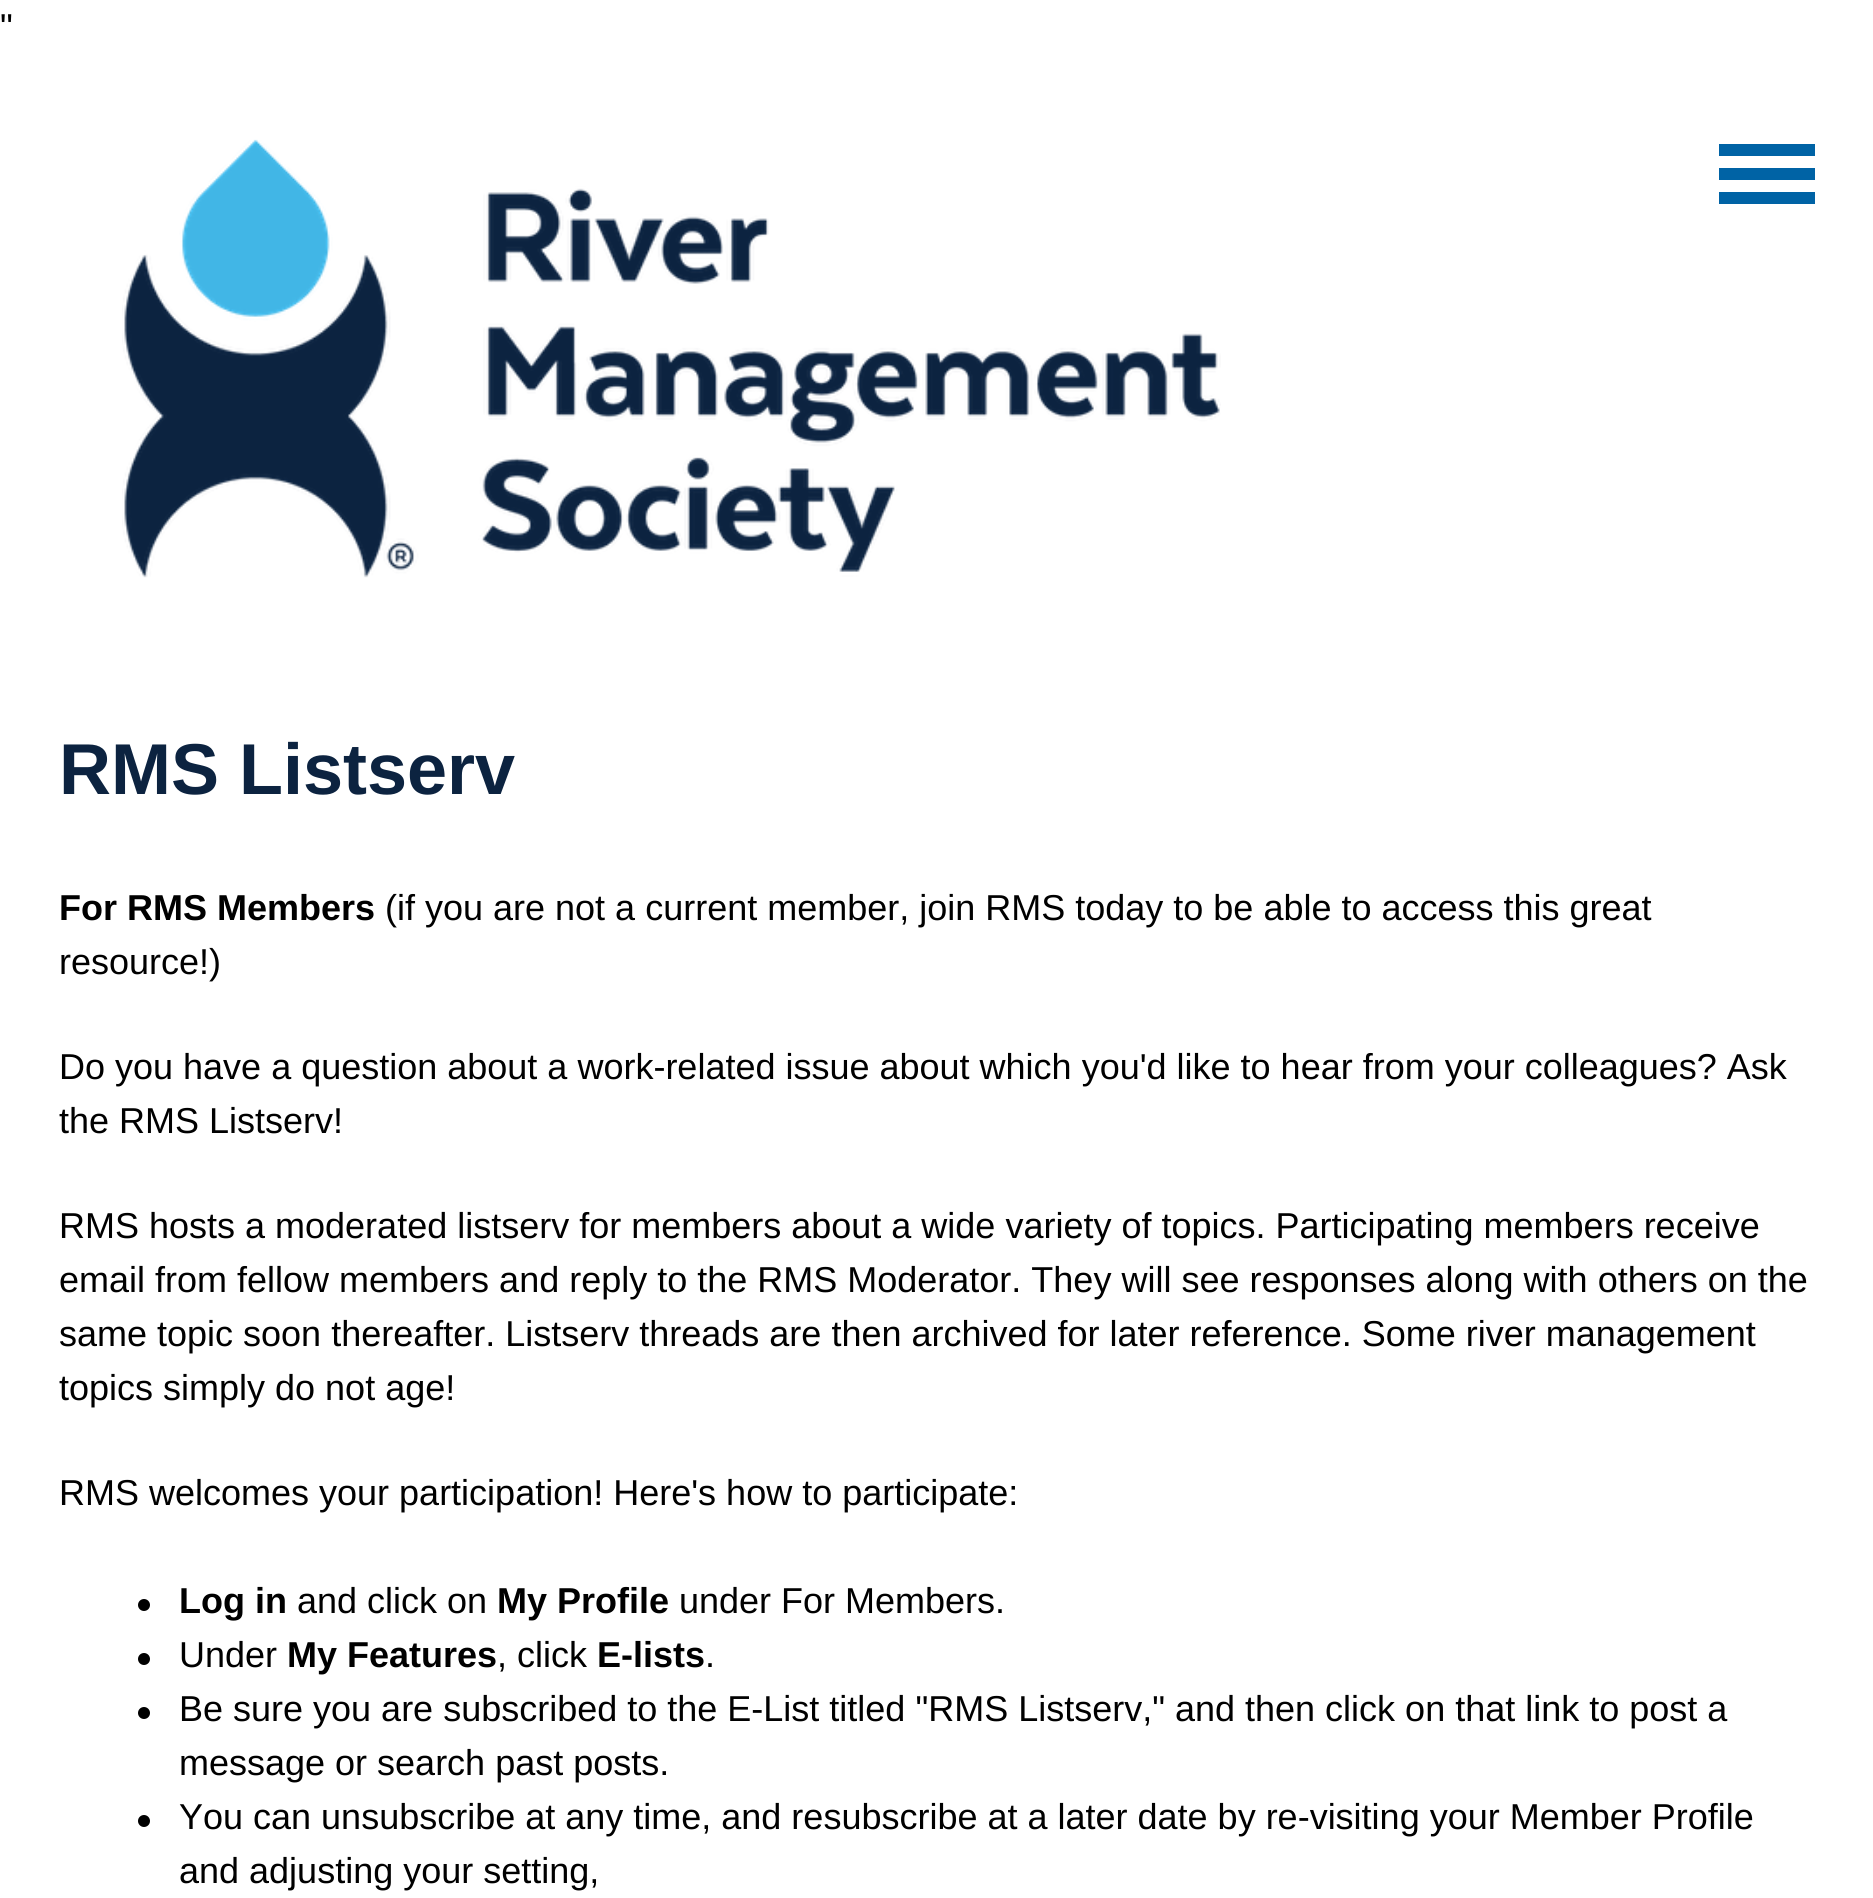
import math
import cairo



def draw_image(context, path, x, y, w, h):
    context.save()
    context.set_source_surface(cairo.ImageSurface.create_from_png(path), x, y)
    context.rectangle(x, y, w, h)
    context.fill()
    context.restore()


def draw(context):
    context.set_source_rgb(1, 1, 1)
    context.paint()
    draw_image(context, "images/1.png", 122, 139, 1099, 439)
    context.set_source_rgb(0, 99 / 255, 165 / 255)
    context.new_path()
    context.move_to(1719, 144)
    context.line_to(1815, 144)
    context.line_to(1815, 156)
    context.line_to(1719, 156)
    context.close_path()
    context.move_to(1719, 168)
    context.line_to(1815, 168)
    context.line_to(1815, 180)
    context.line_to(1719, 180)
    context.close_path()
    context.move_to(1719, 192)
    context.line_to(1815, 192)
    context.line_to(1815, 204)
    context.line_to(1719, 204)
    context.close_path()
    context.fill()
    context.set_source_rgb(0, 0, 0)
    context.arc(144, 1605, 6, 0, 2 * math.pi)
    context.fill()
    context.arc(144, 1659, 6, 0, 2 * math.pi)
    context.fill()
    context.arc(144, 1713, 6, 0, 2 * math.pi)
    context.fill()
    context.arc(144, 1821, 6, 0, 2 * math.pi)
    context.fill()
    context.select_font_face("Liberation Sans")
    context.set_font_size(36)
    context.move_to(0, 39)
    context.show_text("\"")
    context.select_font_face("Liberation Sans", cairo.FontSlant.NORMAL, cairo.FontWeight.BOLD)
    context.set_font_size(72)
    context.set_source_rgb(12 / 255, 35 / 255, 64 / 255)
    context.move_to(59, 794)
    context.show_text("RMS Listserv")
    context.set_font_size(36)
    context.set_source_rgb(0, 0, 0)
    context.move_to(59, 920)
    context.show_text("For RMS Members")
    context.select_font_face("Liberation Sans")
    context.move_to(385, 920)
    context.show_text("(if you are not a current member, join RMS today to be able to access this great")
    context.move_to(59, 974)
    context.show_text("resource!)")
    context.move_to(59, 1079)
    context.show_text("Do you have a question about a work-related issue about which you'd like to hear from your colleagues? Ask")
    context.move_to(59, 1133)
    context.show_text("the RMS Listserv!")
    context.move_to(59, 1238)
    context.show_text("RMS hosts a moderated listserv for members about a wide variety of topics. Participating members receive")
    context.move_to(59, 1292)
    context.show_text("email from fellow members and reply to the RMS Moderator. They will see responses along with others on the")
    context.move_to(59, 1346)
    context.show_text("same topic soon thereafter. Listserv threads are then archived for later reference. Some river management")
    context.move_to(59, 1400)
    context.show_text("topics simply do not age!")
    context.move_to(59, 1505)
    context.show_text("RMS welcomes your participation! Here's how to participate:")
    context.select_font_face("Liberation Sans", cairo.FontSlant.NORMAL, cairo.FontWeight.BOLD)
    context.move_to(179, 1613)
    context.show_text("Log in")
    context.select_font_face("Liberation Sans")
    context.move_to(297, 1613)
    context.show_text("and click on")
    context.select_font_face("Liberation Sans", cairo.FontSlant.NORMAL, cairo.FontWeight.BOLD)
    context.move_to(497, 1613)
    context.show_text("My Profile")
    context.select_font_face("Liberation Sans")
    context.move_to(679, 1613)
    context.show_text("under For Members.")
    context.move_to(179, 1667)
    context.show_text("Under")
    context.select_font_face("Liberation Sans", cairo.FontSlant.NORMAL, cairo.FontWeight.BOLD)
    context.move_to(287, 1667)
    context.show_text("My Features")
    context.select_font_face("Liberation Sans")
    context.move_to(497, 1667)
    context.show_text(", click")
    context.select_font_face("Liberation Sans", cairo.FontSlant.NORMAL, cairo.FontWeight.BOLD)
    context.move_to(597, 1667)
    context.show_text("E-lists")
    context.select_font_face("Liberation Sans")
    context.move_to(705, 1667)
    context.show_text(".")
    context.move_to(179, 1721)
    context.show_text("Be sure you are subscribed to the E-List titled \"RMS Listserv,\" and then click on that link to post a")
    context.move_to(179, 1775)
    context.show_text("message or search past posts.")
    context.move_to(179, 1829)
    context.show_text("You can unsubscribe at any time, and resubscribe at a later date by re-visiting your Member Profile")
    context.move_to(179, 1883)
    context.show_text("and adjusting your setting,")


surface = cairo.ImageSurface(cairo.Format.RGB24, 1873, 1898)
context = cairo.Context(surface)
options = cairo.FontOptions()
options.set_hint_metrics(cairo.HintMetrics.OFF)
options.set_hint_style(cairo.HintStyle.NONE)
context.set_font_options(options)
context.set_miter_limit(4)
draw(context)
surface.write_to_png("out.png")
